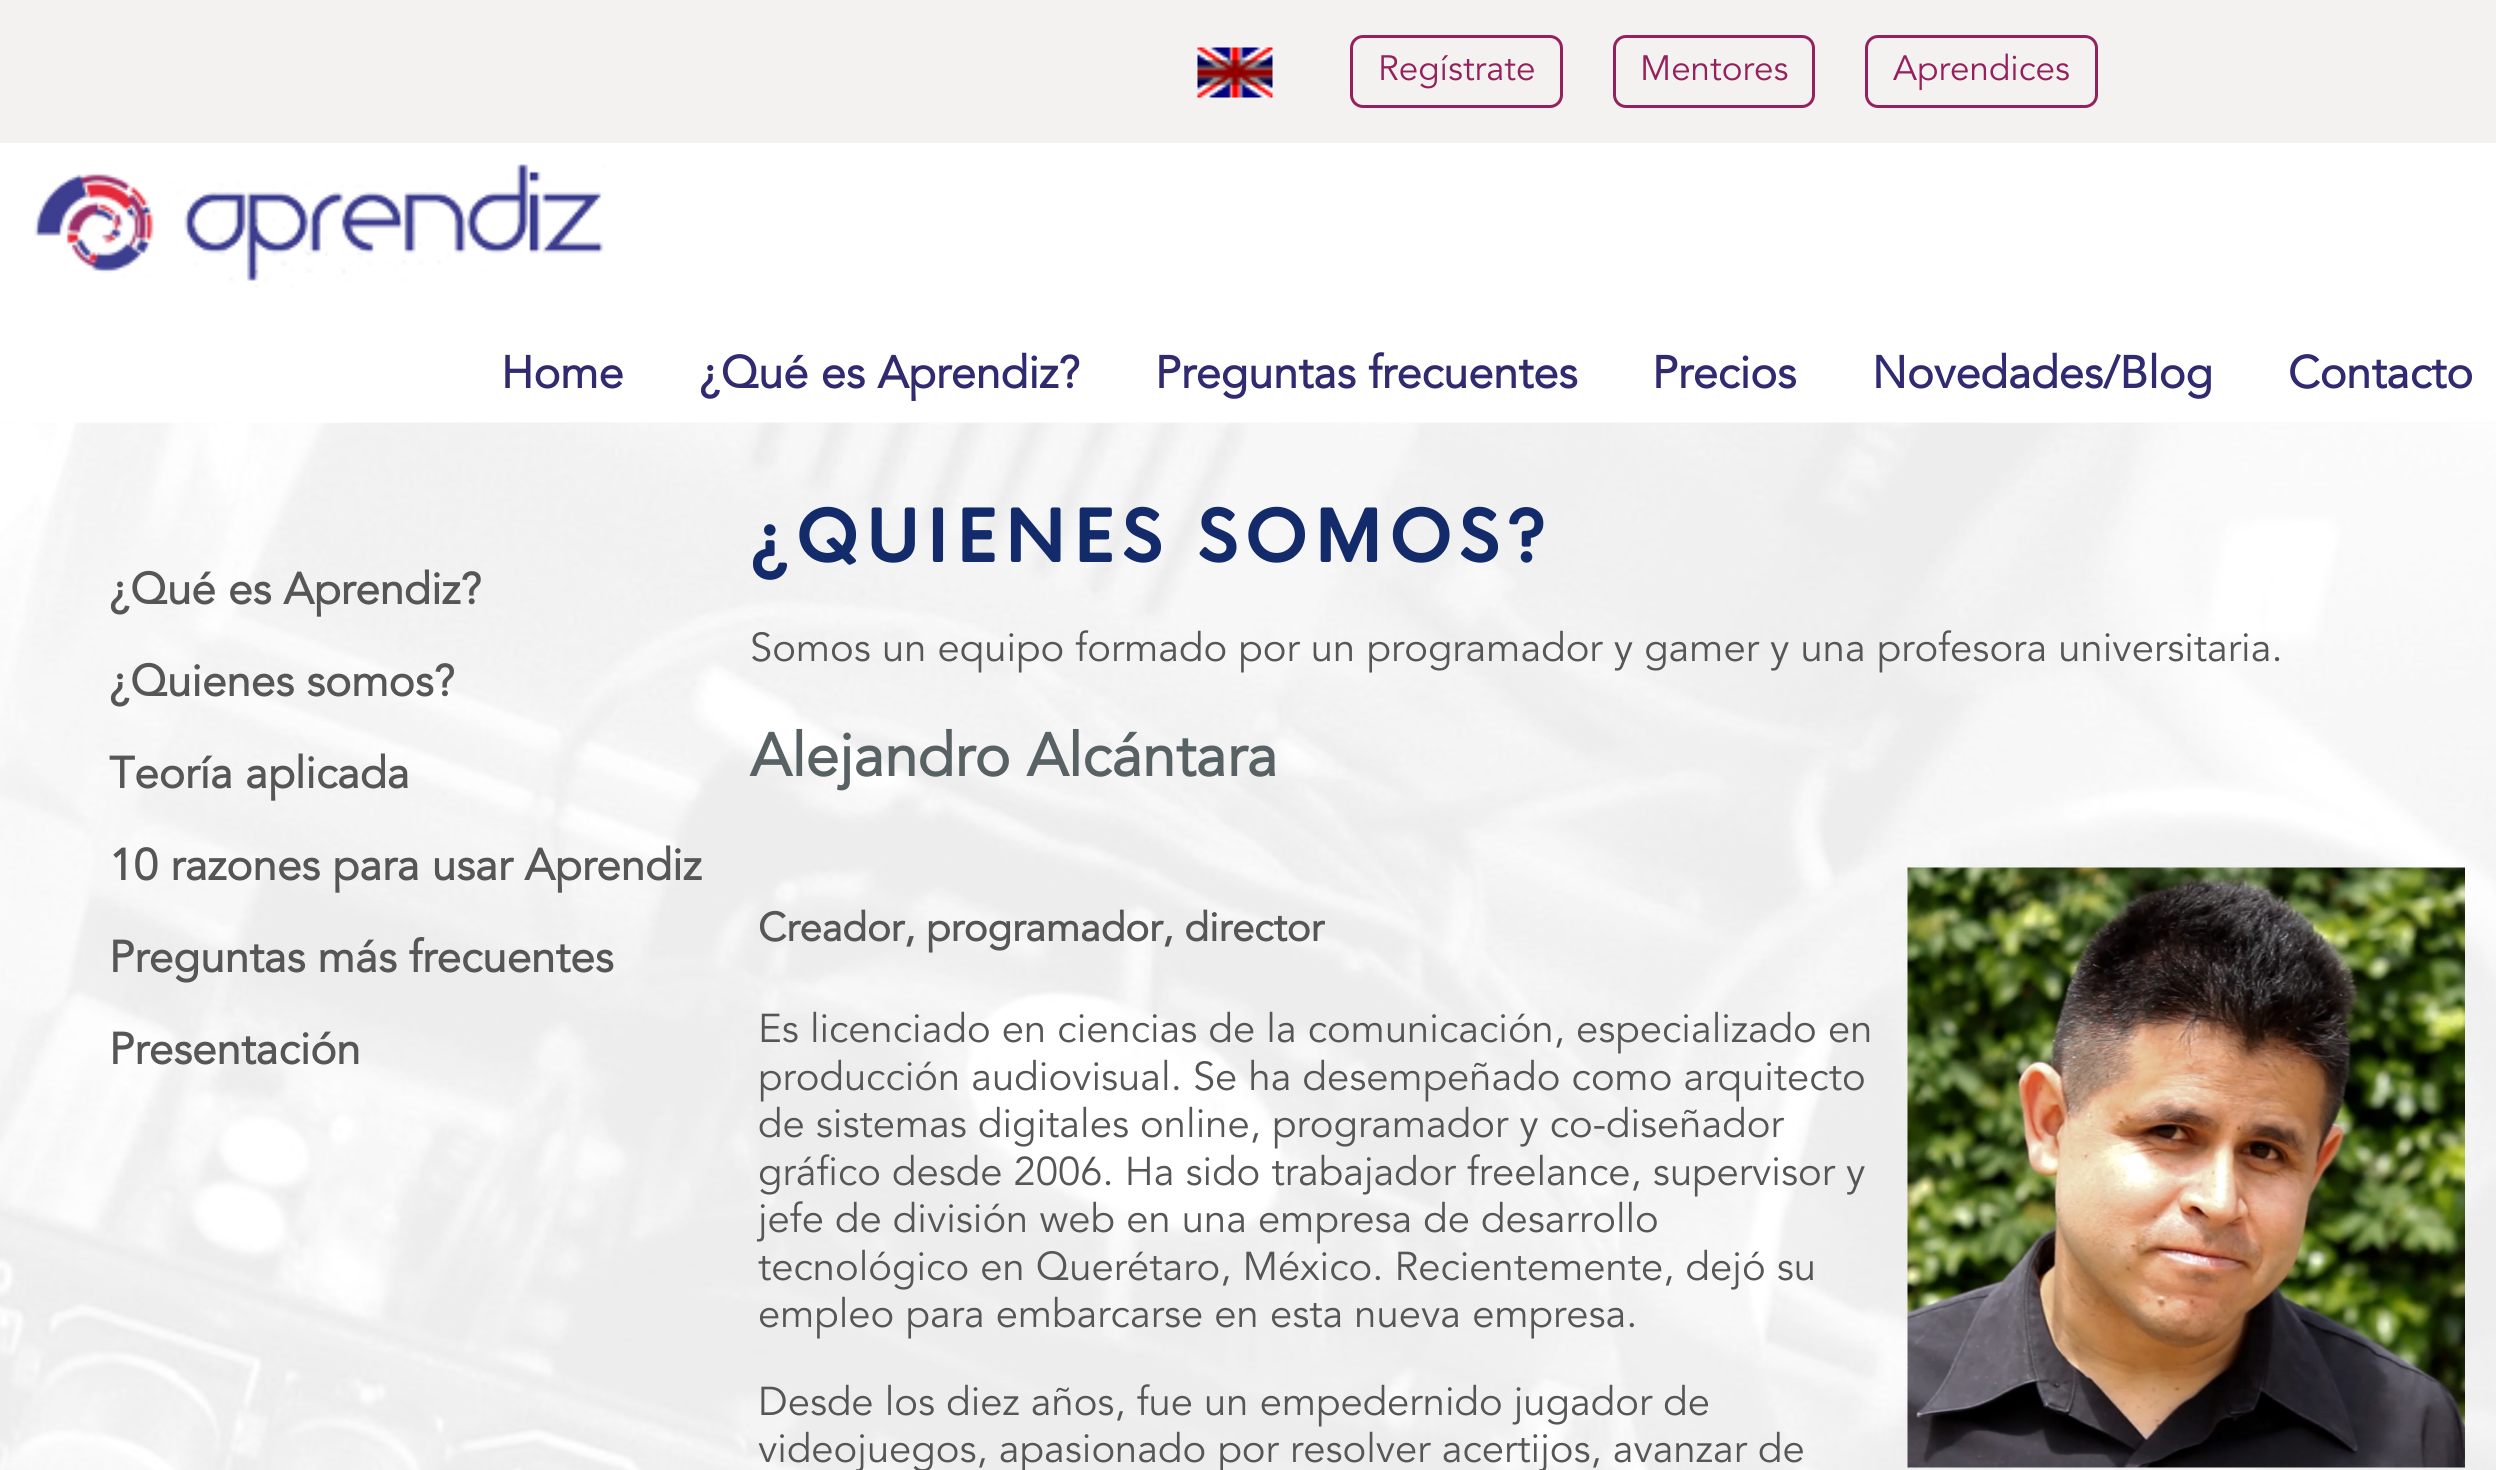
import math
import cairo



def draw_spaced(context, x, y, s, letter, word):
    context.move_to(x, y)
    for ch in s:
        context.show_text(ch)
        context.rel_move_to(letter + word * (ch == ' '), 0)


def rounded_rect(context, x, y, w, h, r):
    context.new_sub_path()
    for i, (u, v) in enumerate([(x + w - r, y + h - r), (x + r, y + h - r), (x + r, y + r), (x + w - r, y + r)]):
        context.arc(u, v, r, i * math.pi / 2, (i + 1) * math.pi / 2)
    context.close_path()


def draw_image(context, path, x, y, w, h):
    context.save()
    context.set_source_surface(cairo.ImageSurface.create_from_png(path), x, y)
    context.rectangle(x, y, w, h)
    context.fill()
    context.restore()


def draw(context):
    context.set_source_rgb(243 / 255, 242 / 255, 241 / 255)
    context.paint()
    draw_image(context, "images/1.png", 1197, 47, 76, 51)
    rounded_rect(context, 1351.5, 36.5, 210, 70, 11.5)
    context.set_source_rgb(150 / 255, 32 / 255, 93 / 255)
    context.set_line_width(3)
    context.stroke()
    rounded_rect(context, 1614.5, 36.5, 199, 70, 11.5)
    context.stroke()
    rounded_rect(context, 1866.5, 36.5, 230, 70, 11.5)
    context.stroke()
    context.set_source_rgb(1, 1, 1)
    context.rectangle(0, 143, 2496, 280)
    context.fill()
    draw_image(context, "images/2.png", 34, 164, 570, 124)
    draw_image(context, "images/3.png", 0, 422, 2496, 1048)
    draw_image(context, "images/4.png", 1907, 867, 558, 601)
    context.select_font_face("Avenir")
    context.set_font_size(35)
    context.set_source_rgb(150 / 255, 32 / 255, 93 / 255)
    context.move_to(1378, 80)
    context.show_text("Regístrate")
    context.move_to(1640, 80)
    context.show_text("Mentores")
    context.move_to(1893, 80)
    context.show_text("Aprendices")
    context.select_font_face("Avenir", cairo.FontSlant.NORMAL, cairo.FontWeight.BOLD)
    context.set_font_size(45)
    context.set_source_rgb(48 / 255, 42 / 255, 112 / 255)
    context.move_to(501, 388)
    context.show_text("Home")
    context.move_to(699, 388)
    context.show_text("¿Qué es Aprendiz?")
    context.move_to(1155, 388)
    context.show_text("Preguntas frecuentes")
    context.move_to(1652, 388)
    context.show_text("Precios")
    context.move_to(1872, 388)
    context.show_text("Novedades/Blog")
    context.move_to(2288, 388)
    context.show_text("Contacto")
    context.set_font_size(44)
    context.set_source_rgb(86 / 255, 86 / 255, 86 / 255)
    context.move_to(109, 604)
    context.show_text("¿Qué es Aprendiz?")
    context.move_to(109, 696)
    context.show_text("¿Quienes somos?")
    context.move_to(109, 788)
    context.show_text("Teoría aplicada")
    context.move_to(109, 880)
    context.show_text("10 razones para usar Aprendiz")
    context.move_to(109, 972)
    context.show_text("Preguntas más frecuentes")
    context.move_to(109, 1064)
    context.show_text("Presentación")
    context.select_font_face("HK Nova", cairo.FontSlant.NORMAL, cairo.FontWeight.BOLD)
    context.set_font_size(70)
    context.set_source_rgb(19 / 255, 43 / 255, 107 / 255)
    draw_spaced(context, 750, 562, "¿QUIENES SOMOS?", 7, 0)
    context.select_font_face("Avenir")
    context.set_font_size(40)
    context.set_source_rgb(86 / 255, 86 / 255, 86 / 255)
    context.move_to(750, 661)
    context.show_text("Somos un equipo formado por un programador y gamer y una profesora universitaria.")
    context.select_font_face("Avenir", cairo.FontSlant.NORMAL, cairo.FontWeight.BOLD)
    context.set_font_size(60)
    context.set_source_rgb(88 / 255, 97 / 255, 100 / 255)
    context.move_to(750, 776)
    context.show_text("Alejandro Alcántara")
    context.set_font_size(40)
    context.set_source_rgb(86 / 255, 86 / 255, 86 / 255)
    context.move_to(758, 941)
    context.show_text("Creador, programador, director")
    context.select_font_face("Avenir")
    context.move_to(758, 1042)
    context.show_text("Es licenciado en ciencias de la comunicación, especializado en")
    context.move_to(758, 1090)
    context.show_text("producción audiovisual. Se ha desempeñado como arquitecto")
    context.move_to(758, 1137)
    context.show_text("de sistemas digitales online, programador y co-diseñador")
    context.move_to(758, 1185)
    context.show_text("gráfico desde 2006. Ha sido trabajador freelance, supervisor y")
    context.move_to(758, 1232)
    context.show_text("jefe de división web en una empresa de desarrollo")
    context.move_to(758, 1280)
    context.show_text("tecnológico en Querétaro, México. Recientemente, dejó su")
    context.move_to(758, 1327)
    context.show_text("empleo para embarcarse en esta nueva empresa.")
    context.move_to(758, 1415)
    context.show_text("Desde los diez años, fue un empedernido jugador de")
    context.move_to(758, 1462)
    context.show_text("videojuegos, apasionado por resolver acertijos, avanzar de")


surface = cairo.ImageSurface(cairo.Format.RGB24, 2496, 1470)
context = cairo.Context(surface)
options = cairo.FontOptions()
options.set_hint_metrics(cairo.HintMetrics.OFF)
options.set_hint_style(cairo.HintStyle.NONE)
context.set_font_options(options)
context.set_miter_limit(4)
draw(context)
surface.write_to_png("out.png")
